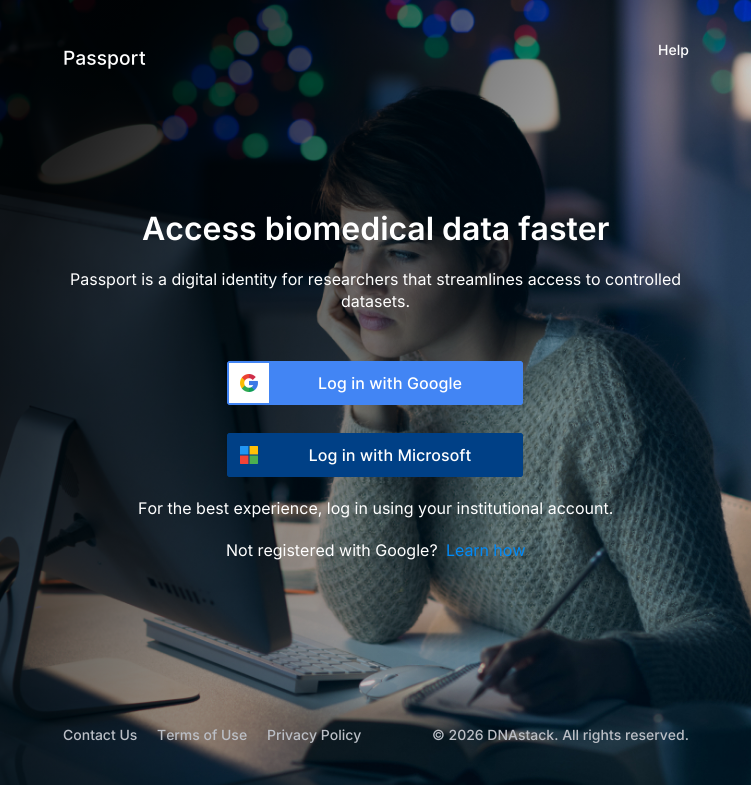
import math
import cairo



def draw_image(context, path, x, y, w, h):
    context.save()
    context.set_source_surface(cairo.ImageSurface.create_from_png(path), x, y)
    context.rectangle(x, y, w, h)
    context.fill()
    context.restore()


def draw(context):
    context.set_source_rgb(1, 1, 1)
    context.paint()
    draw_image(context, "images/1.png", 0, 0, 751, 785)
    draw_image(context, "images/2.png", 64, 50, 82, 19)
    draw_image(context, "images/3.png", 227, 361, 296, 44)
    draw_image(context, "images/4.png", 227, 433, 296, 44)
    context.select_font_face("Inter Medium")
    context.set_font_size(14)
    context.set_source_rgb(1, 1, 1)
    context.move_to(658, 55)
    context.show_text("Help")
    context.select_font_face("Inter SemiBold")
    context.set_font_size(32)
    context.move_to(142, 240)
    context.show_text("Access biomedical data faster")
    context.select_font_face("Inter")
    context.set_font_size(16)
    context.move_to(70, 285)
    context.show_text("Passport is a digital identity for researchers that streamlines access to controlled")
    context.move_to(341, 307)
    context.show_text("datasets.")
    context.move_to(138, 514)
    context.show_text("For the best experience, log in using your institutional account.")
    context.move_to(226, 556)
    context.show_text("Not registered with Google?")
    context.set_source_rgb(0, 137 / 255, 246 / 255)
    context.move_to(446, 556)
    context.show_text("Learn how")
    context.select_font_face("Inter Medium")
    context.set_font_size(14)
    context.set_source_rgb(187 / 255, 191 / 255, 198 / 255)
    context.move_to(63, 740)
    context.show_text("Contact Us")
    context.move_to(157, 740)
    context.show_text("Terms of Use")
    context.move_to(267, 740)
    context.show_text("Privacy Policy")
    context.move_to(432, 740)
    context.show_text("© 2026 DNAstack. All rights reserved.")


surface = cairo.ImageSurface(cairo.Format.RGB24, 751, 785)
context = cairo.Context(surface)
options = cairo.FontOptions()
options.set_hint_metrics(cairo.HintMetrics.OFF)
options.set_hint_style(cairo.HintStyle.NONE)
context.set_font_options(options)
context.set_miter_limit(4)
draw(context)
surface.write_to_png("out.png")
